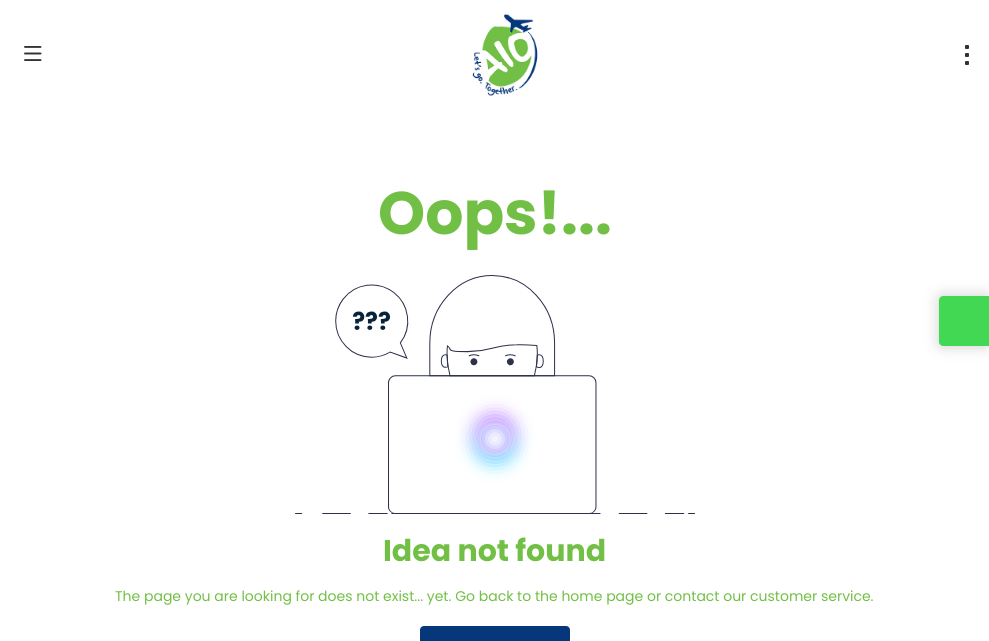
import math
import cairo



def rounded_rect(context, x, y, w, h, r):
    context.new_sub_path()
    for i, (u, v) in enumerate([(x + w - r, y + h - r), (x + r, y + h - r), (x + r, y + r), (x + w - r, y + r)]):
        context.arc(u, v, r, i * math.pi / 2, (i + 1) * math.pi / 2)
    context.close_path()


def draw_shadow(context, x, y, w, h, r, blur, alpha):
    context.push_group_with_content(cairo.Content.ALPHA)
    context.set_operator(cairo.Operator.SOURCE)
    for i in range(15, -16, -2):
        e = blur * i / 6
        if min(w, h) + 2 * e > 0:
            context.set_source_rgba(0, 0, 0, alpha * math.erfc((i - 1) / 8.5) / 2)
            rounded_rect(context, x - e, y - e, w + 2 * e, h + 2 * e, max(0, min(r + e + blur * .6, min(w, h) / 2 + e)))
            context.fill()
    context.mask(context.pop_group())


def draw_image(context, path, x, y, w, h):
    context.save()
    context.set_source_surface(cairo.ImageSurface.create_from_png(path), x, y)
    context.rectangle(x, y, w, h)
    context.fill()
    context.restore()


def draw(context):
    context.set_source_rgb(1, 1, 1)
    context.paint()
    draw_image(context, "images/1.png", 24, 46, 18, 15)
    draw_image(context, "images/2.png", 472, 14, 66, 82)
    context.set_source_rgb(51 / 255, 49 / 255, 49 / 255)
    rounded_rect(context, 965, 45, 4, 4, 1)
    context.fill()
    rounded_rect(context, 965, 53, 4, 4, 1)
    context.fill()
    rounded_rect(context, 965, 61, 4, 4, 1)
    context.fill()
    draw_image(context, "images/3.png", 295, 275, 400, 239)
    context.save()
    context.set_fill_rule(cairo.FillRule.EVEN_ODD)
    context.new_path()
    context.move_to(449, 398)
    context.line_to(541, 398)
    context.line_to(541, 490)
    context.line_to(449, 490)
    context.close_path()
    context.move_to(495, 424)
    context.curve_to(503.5, 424, 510, 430.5, 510, 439)
    context.curve_to(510, 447.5, 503.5, 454, 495, 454)
    context.curve_to(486.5, 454, 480, 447.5, 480, 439)
    context.curve_to(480, 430.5, 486.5, 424, 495, 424)
    context.close_path()
    context.clip()
    context.set_source_rgb(0, 225 / 255, 1)
    draw_shadow(context, 480, 429, 30, 30, 15, 10, 1)
    context.restore()
    context.save()
    context.set_fill_rule(cairo.FillRule.EVEN_ODD)
    context.new_path()
    context.move_to(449, 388)
    context.line_to(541, 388)
    context.line_to(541, 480)
    context.line_to(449, 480)
    context.close_path()
    context.move_to(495, 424)
    context.curve_to(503.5, 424, 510, 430.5, 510, 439)
    context.curve_to(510, 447.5, 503.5, 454, 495, 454)
    context.curve_to(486.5, 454, 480, 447.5, 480, 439)
    context.curve_to(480, 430.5, 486.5, 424, 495, 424)
    context.close_path()
    context.clip()
    context.set_source_rgb(186 / 255, 66 / 255, 1)
    draw_shadow(context, 480, 419, 30, 30, 15, 10, 1)
    context.restore()
    context.set_source_rgb(126 / 255, 118 / 255, 1)
    draw_shadow(context, 480, 424, 30, 30, 15, 1, 1)
    context.set_source_rgb(1, 1, 1)
    draw_shadow(context, 480, 424, 30, 30, 15, 10, 1)
    context.set_source_rgb(6 / 255, 55 / 255, 123 / 255)
    rounded_rect(context, 420, 626, 150, 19, 4)
    context.fill()
    context.set_source_rgb(0, 0, 0)
    draw_shadow(context, 939, 296, 50, 50, 4, 7.5, 0.2)
    context.set_source_rgb(67 / 255, 216 / 255, 84 / 255)
    context.new_path()
    context.move_to(943, 296)
    context.line_to(989, 296)
    context.line_to(989, 346)
    context.line_to(943, 346)
    context.curve_to(941, 346, 939, 344, 939, 342)
    context.line_to(939, 300)
    context.curve_to(939, 298, 941, 296, 943, 296)
    context.close_path()
    context.fill()
    context.select_font_face("Poppins", cairo.FontSlant.NORMAL, cairo.FontWeight.BOLD)
    context.set_font_size(60)
    context.set_source_rgb(113 / 255, 191 / 255, 68 / 255)
    context.move_to(378, 234)
    context.show_text("Oops!...")
    context.set_font_size(30)
    context.move_to(383, 561)
    context.show_text("Idea not found")
    context.select_font_face("Poppins")
    context.set_font_size(14)
    context.move_to(115, 601)
    context.show_text("The page you are looking for does not exist... yet. Go back to the home page or contact our customer service.")


surface = cairo.ImageSurface(cairo.Format.RGB24, 989, 641)
context = cairo.Context(surface)
options = cairo.FontOptions()
options.set_hint_metrics(cairo.HintMetrics.OFF)
options.set_hint_style(cairo.HintStyle.NONE)
context.set_font_options(options)
context.set_miter_limit(4)
draw(context)
surface.write_to_png("out.png")
